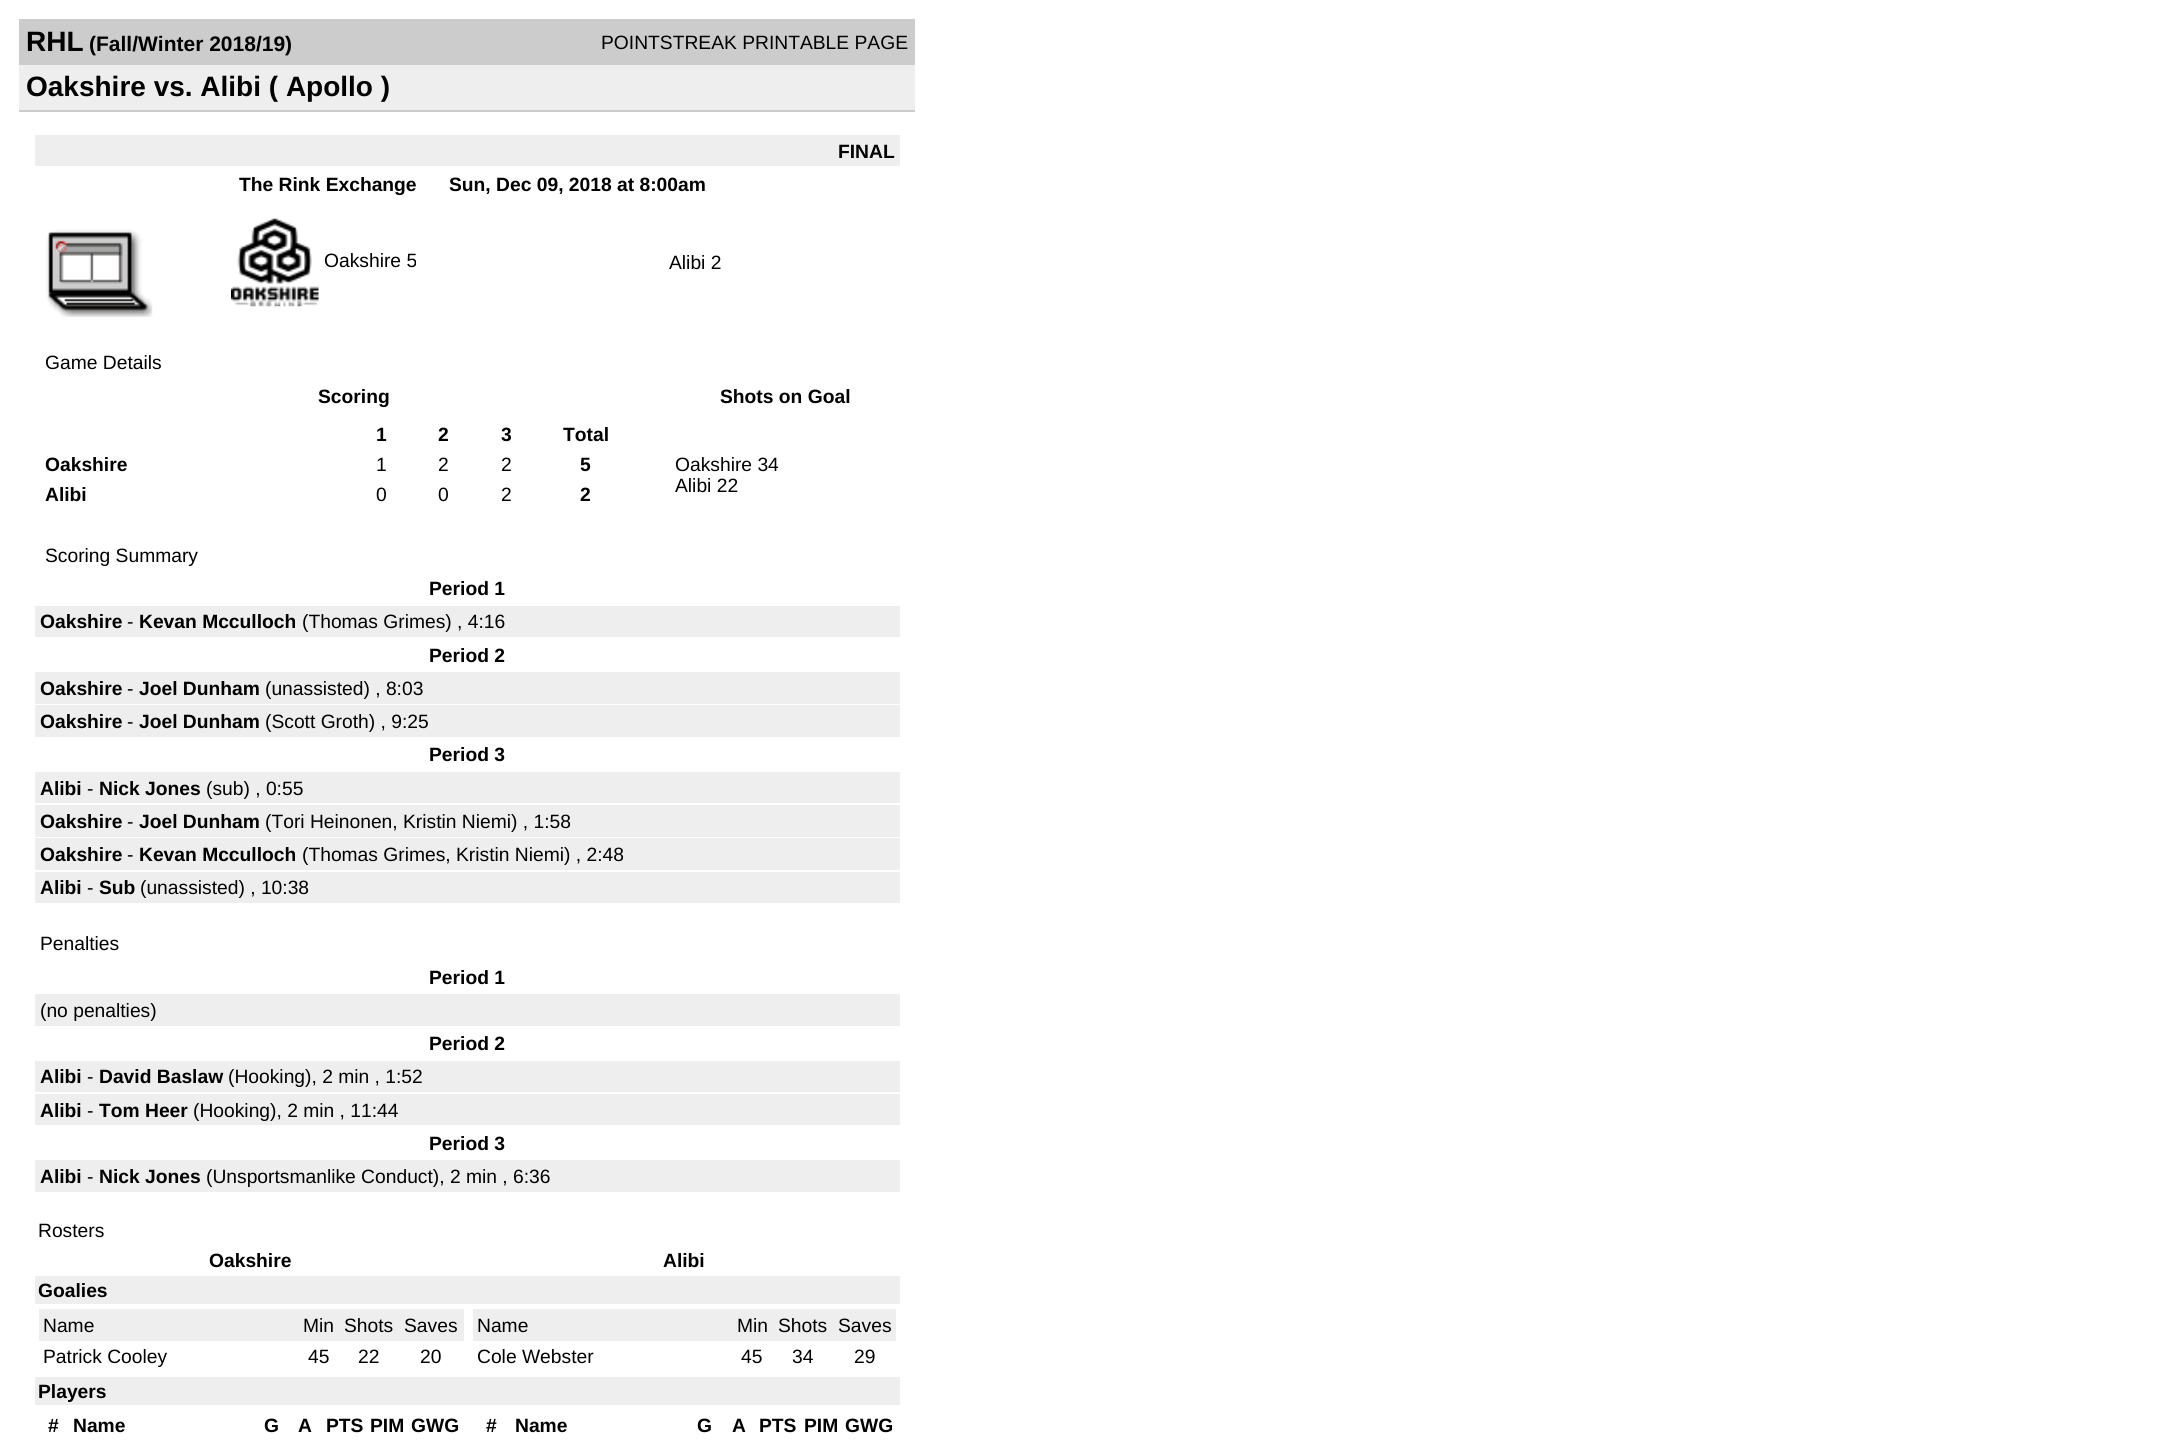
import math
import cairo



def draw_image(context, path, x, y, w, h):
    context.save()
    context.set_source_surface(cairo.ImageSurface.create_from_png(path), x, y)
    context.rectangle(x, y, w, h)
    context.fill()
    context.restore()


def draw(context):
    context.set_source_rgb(1, 1, 1)
    context.paint()
    context.set_source_rgb(204 / 255, 204 / 255, 204 / 255)
    context.rectangle(19, 19, 896, 46)
    context.fill()
    context.set_source_rgb(238 / 255, 238 / 255, 238 / 255)
    context.rectangle(19, 65, 896, 45)
    context.fill()
    context.set_source_rgb(204 / 255, 204 / 255, 204 / 255)
    context.rectangle(19, 110, 896, 2)
    context.fill()
    context.set_source_rgb(238 / 255, 238 / 255, 238 / 255)
    context.rectangle(35, 135, 865, 31)
    context.fill()
    draw_image(context, "images/1.png", 46, 229, 107, 88)
    draw_image(context, "images/2.png", 231, 218, 88, 89)
    context.rectangle(35, 606, 865, 31)
    context.fill()
    context.rectangle(35, 672, 865, 32)
    context.fill()
    context.rectangle(35, 705, 865, 32)
    context.fill()
    context.rectangle(35, 772, 865, 31)
    context.fill()
    context.rectangle(35, 805, 865, 32)
    context.fill()
    context.rectangle(35, 838, 865, 32)
    context.fill()
    context.rectangle(35, 872, 865, 31)
    context.fill()
    context.rectangle(35, 994, 865, 32)
    context.fill()
    context.rectangle(35, 1061, 865, 31)
    context.fill()
    context.rectangle(35, 1094, 865, 31)
    context.fill()
    context.rectangle(35, 1160, 865, 32)
    context.fill()
    context.rectangle(35, 1276, 865, 28)
    context.fill()
    context.rectangle(39, 1309, 425, 32)
    context.fill()
    context.rectangle(473, 1309, 423, 32)
    context.fill()
    context.rectangle(35, 1377, 865, 28)
    context.fill()
    context.select_font_face("Liberation Sans", cairo.FontSlant.NORMAL, cairo.FontWeight.BOLD)
    context.set_font_size(28)
    context.set_source_rgb(0, 0, 0)
    context.move_to(26, 51)
    context.show_text("RHL")
    context.set_font_size(21)
    context.move_to(89, 51)
    context.show_text("(Fall/Winter 2018/19)")
    context.select_font_face("Liberation Sans")
    context.set_font_size(19.25)
    context.move_to(601, 49)
    context.show_text("POINTSTREAK PRINTABLE PAGE")
    context.select_font_face("Liberation Sans", cairo.FontSlant.NORMAL, cairo.FontWeight.BOLD)
    context.set_font_size(28)
    context.move_to(26, 96)
    context.show_text("Oakshire vs. Alibi ( Apollo )")
    context.set_font_size(19.25)
    context.move_to(838, 158)
    context.show_text("FINAL")
    context.move_to(239, 191)
    context.show_text("The Rink Exchange")
    context.move_to(449, 191)
    context.show_text("Sun, Dec 09, 2018 at 8:00am")
    context.select_font_face("Liberation Sans")
    context.move_to(324, 267)
    context.show_text("Oakshire 5")
    context.move_to(669, 269)
    context.show_text("Alibi 2")
    context.move_to(45, 369)
    context.show_text("Game Details")
    context.select_font_face("Liberation Sans", cairo.FontSlant.NORMAL, cairo.FontWeight.BOLD)
    context.move_to(318, 403)
    context.show_text("Scoring")
    context.move_to(720, 403)
    context.show_text("Shots on Goal")
    context.move_to(376, 441)
    context.show_text("1")
    context.move_to(438, 441)
    context.show_text("2")
    context.move_to(501, 441)
    context.show_text("3")
    context.move_to(563, 441)
    context.show_text("Total")
    context.move_to(45, 471)
    context.show_text("Oakshire")
    context.select_font_face("Liberation Sans")
    context.move_to(376, 471)
    context.show_text("1")
    context.move_to(438, 471)
    context.show_text("2")
    context.move_to(501, 471)
    context.show_text("2")
    context.select_font_face("Liberation Sans", cairo.FontSlant.NORMAL, cairo.FontWeight.BOLD)
    context.move_to(580, 471)
    context.show_text("5")
    context.move_to(45, 501)
    context.show_text("Alibi")
    context.select_font_face("Liberation Sans")
    context.move_to(376, 501)
    context.show_text("0")
    context.move_to(438, 501)
    context.show_text("0")
    context.move_to(501, 501)
    context.show_text("2")
    context.select_font_face("Liberation Sans", cairo.FontSlant.NORMAL, cairo.FontWeight.BOLD)
    context.move_to(580, 501)
    context.show_text("2")
    context.select_font_face("Liberation Sans")
    context.move_to(675, 471)
    context.show_text("Oakshire 34")
    context.move_to(675, 492)
    context.show_text("Alibi 22")
    context.move_to(45, 562)
    context.show_text("Scoring Summary")
    context.select_font_face("Liberation Sans", cairo.FontSlant.NORMAL, cairo.FontWeight.BOLD)
    context.move_to(429, 595)
    context.show_text("Period 1")
    context.move_to(40, 628)
    context.show_text("Oakshire")
    context.select_font_face("Liberation Sans")
    context.move_to(127, 628)
    context.show_text("-")
    context.select_font_face("Liberation Sans", cairo.FontSlant.NORMAL, cairo.FontWeight.BOLD)
    context.move_to(139, 628)
    context.show_text("Kevan Mcculloch")
    context.select_font_face("Liberation Sans")
    context.move_to(302, 628)
    context.show_text("(Thomas Grimes) , 4:16")
    context.select_font_face("Liberation Sans", cairo.FontSlant.NORMAL, cairo.FontWeight.BOLD)
    context.move_to(429, 662)
    context.show_text("Period 2")
    context.move_to(40, 695)
    context.show_text("Oakshire")
    context.select_font_face("Liberation Sans")
    context.move_to(127, 695)
    context.show_text("-")
    context.select_font_face("Liberation Sans", cairo.FontSlant.NORMAL, cairo.FontWeight.BOLD)
    context.move_to(139, 695)
    context.show_text("Joel Dunham")
    context.select_font_face("Liberation Sans")
    context.move_to(265, 695)
    context.show_text("(unassisted) , 8:03")
    context.select_font_face("Liberation Sans", cairo.FontSlant.NORMAL, cairo.FontWeight.BOLD)
    context.move_to(40, 728)
    context.show_text("Oakshire")
    context.select_font_face("Liberation Sans")
    context.move_to(127, 728)
    context.show_text("-")
    context.select_font_face("Liberation Sans", cairo.FontSlant.NORMAL, cairo.FontWeight.BOLD)
    context.move_to(139, 728)
    context.show_text("Joel Dunham")
    context.select_font_face("Liberation Sans")
    context.move_to(265, 728)
    context.show_text("(Scott Groth) , 9:25")
    context.select_font_face("Liberation Sans", cairo.FontSlant.NORMAL, cairo.FontWeight.BOLD)
    context.move_to(429, 761)
    context.show_text("Period 3")
    context.move_to(40, 795)
    context.show_text("Alibi")
    context.select_font_face("Liberation Sans")
    context.move_to(87, 795)
    context.show_text("-")
    context.select_font_face("Liberation Sans", cairo.FontSlant.NORMAL, cairo.FontWeight.BOLD)
    context.move_to(99, 795)
    context.show_text("Nick Jones")
    context.select_font_face("Liberation Sans")
    context.move_to(206, 795)
    context.show_text("(sub) , 0:55")
    context.select_font_face("Liberation Sans", cairo.FontSlant.NORMAL, cairo.FontWeight.BOLD)
    context.move_to(40, 828)
    context.show_text("Oakshire")
    context.select_font_face("Liberation Sans")
    context.move_to(127, 828)
    context.show_text("-")
    context.select_font_face("Liberation Sans", cairo.FontSlant.NORMAL, cairo.FontWeight.BOLD)
    context.move_to(139, 828)
    context.show_text("Joel Dunham")
    context.select_font_face("Liberation Sans")
    context.move_to(265, 828)
    context.show_text("(Tori Heinonen, Kristin Niemi) , 1:58")
    context.select_font_face("Liberation Sans", cairo.FontSlant.NORMAL, cairo.FontWeight.BOLD)
    context.move_to(40, 861)
    context.show_text("Oakshire")
    context.select_font_face("Liberation Sans")
    context.move_to(127, 861)
    context.show_text("-")
    context.select_font_face("Liberation Sans", cairo.FontSlant.NORMAL, cairo.FontWeight.BOLD)
    context.move_to(139, 861)
    context.show_text("Kevan Mcculloch")
    context.select_font_face("Liberation Sans")
    context.move_to(302, 861)
    context.show_text("(Thomas Grimes, Kristin Niemi) , 2:48")
    context.select_font_face("Liberation Sans", cairo.FontSlant.NORMAL, cairo.FontWeight.BOLD)
    context.move_to(40, 894)
    context.show_text("Alibi")
    context.select_font_face("Liberation Sans")
    context.move_to(87, 894)
    context.show_text("-")
    context.select_font_face("Liberation Sans", cairo.FontSlant.NORMAL, cairo.FontWeight.BOLD)
    context.move_to(99, 894)
    context.show_text("Sub")
    context.select_font_face("Liberation Sans")
    context.move_to(140, 894)
    context.show_text("(unassisted) , 10:38")
    context.move_to(40, 950)
    context.show_text("Penalties")
    context.select_font_face("Liberation Sans", cairo.FontSlant.NORMAL, cairo.FontWeight.BOLD)
    context.move_to(429, 984)
    context.show_text("Period 1")
    context.select_font_face("Liberation Sans")
    context.move_to(40, 1017)
    context.show_text("(no penalties)")
    context.select_font_face("Liberation Sans", cairo.FontSlant.NORMAL, cairo.FontWeight.BOLD)
    context.move_to(429, 1050)
    context.show_text("Period 2")
    context.move_to(40, 1083)
    context.show_text("Alibi")
    context.select_font_face("Liberation Sans")
    context.move_to(87, 1083)
    context.show_text("-")
    context.select_font_face("Liberation Sans", cairo.FontSlant.NORMAL, cairo.FontWeight.BOLD)
    context.move_to(99, 1083)
    context.show_text("David Baslaw")
    context.select_font_face("Liberation Sans")
    context.move_to(228, 1083)
    context.show_text("(Hooking), 2 min , 1:52")
    context.select_font_face("Liberation Sans", cairo.FontSlant.NORMAL, cairo.FontWeight.BOLD)
    context.move_to(40, 1117)
    context.show_text("Alibi")
    context.select_font_face("Liberation Sans")
    context.move_to(87, 1117)
    context.show_text("-")
    context.select_font_face("Liberation Sans", cairo.FontSlant.NORMAL, cairo.FontWeight.BOLD)
    context.move_to(99, 1117)
    context.show_text("Tom Heer")
    context.select_font_face("Liberation Sans")
    context.move_to(193, 1117)
    context.show_text("(Hooking), 2 min , 11:44")
    context.select_font_face("Liberation Sans", cairo.FontSlant.NORMAL, cairo.FontWeight.BOLD)
    context.move_to(429, 1150)
    context.show_text("Period 3")
    context.move_to(40, 1183)
    context.show_text("Alibi")
    context.select_font_face("Liberation Sans")
    context.move_to(87, 1183)
    context.show_text("-")
    context.select_font_face("Liberation Sans", cairo.FontSlant.NORMAL, cairo.FontWeight.BOLD)
    context.move_to(99, 1183)
    context.show_text("Nick Jones")
    context.select_font_face("Liberation Sans")
    context.move_to(206, 1183)
    context.show_text("(Unsportsmanlike Conduct), 2 min , 6:36")
    context.move_to(38, 1237)
    context.show_text("Rosters")
    context.select_font_face("Liberation Sans", cairo.FontSlant.NORMAL, cairo.FontWeight.BOLD)
    context.move_to(209, 1267)
    context.show_text("Oakshire")
    context.move_to(663, 1267)
    context.show_text("Alibi")
    context.move_to(38, 1297)
    context.show_text("Goalies")
    context.select_font_face("Liberation Sans")
    context.move_to(43, 1332)
    context.show_text("Name")
    context.move_to(303, 1332)
    context.show_text("Min")
    context.move_to(344, 1332)
    context.show_text("Shots")
    context.move_to(404, 1332)
    context.show_text("Saves")
    context.move_to(43, 1363)
    context.show_text("Patrick Cooley")
    context.move_to(308, 1363)
    context.show_text("45")
    context.move_to(358, 1363)
    context.show_text("22")
    context.move_to(420, 1363)
    context.show_text("20")
    context.move_to(477, 1332)
    context.show_text("Name")
    context.move_to(737, 1332)
    context.show_text("Min")
    context.move_to(778, 1332)
    context.show_text("Shots")
    context.move_to(838, 1332)
    context.show_text("Saves")
    context.move_to(477, 1363)
    context.show_text("Cole Webster")
    context.move_to(741, 1363)
    context.show_text("45")
    context.move_to(792, 1363)
    context.show_text("34")
    context.move_to(854, 1363)
    context.show_text("29")
    context.select_font_face("Liberation Sans", cairo.FontSlant.NORMAL, cairo.FontWeight.BOLD)
    context.move_to(38, 1398)
    context.show_text("Players")
    context.move_to(48, 1432)
    context.show_text("#")
    context.move_to(73, 1432)
    context.show_text("Name")
    context.move_to(264, 1432)
    context.show_text("G")
    context.move_to(298, 1432)
    context.show_text("A")
    context.move_to(326, 1432)
    context.show_text("PTS")
    context.move_to(370, 1432)
    context.show_text("PIM")
    context.move_to(411, 1432)
    context.show_text("GWG")
    context.move_to(486, 1432)
    context.show_text("#")
    context.move_to(515, 1432)
    context.show_text("Name")
    context.move_to(697, 1432)
    context.show_text("G")
    context.move_to(732, 1432)
    context.show_text("A")
    context.move_to(759, 1432)
    context.show_text("PTS")
    context.move_to(804, 1432)
    context.show_text("PIM")
    context.move_to(845, 1432)
    context.show_text("GWG")


surface = cairo.ImageSurface(cairo.Format.RGB24, 2176, 1449)
context = cairo.Context(surface)
options = cairo.FontOptions()
options.set_hint_metrics(cairo.HintMetrics.OFF)
options.set_hint_style(cairo.HintStyle.NONE)
context.set_font_options(options)
context.set_miter_limit(4)
draw(context)
surface.write_to_png("out.png")
